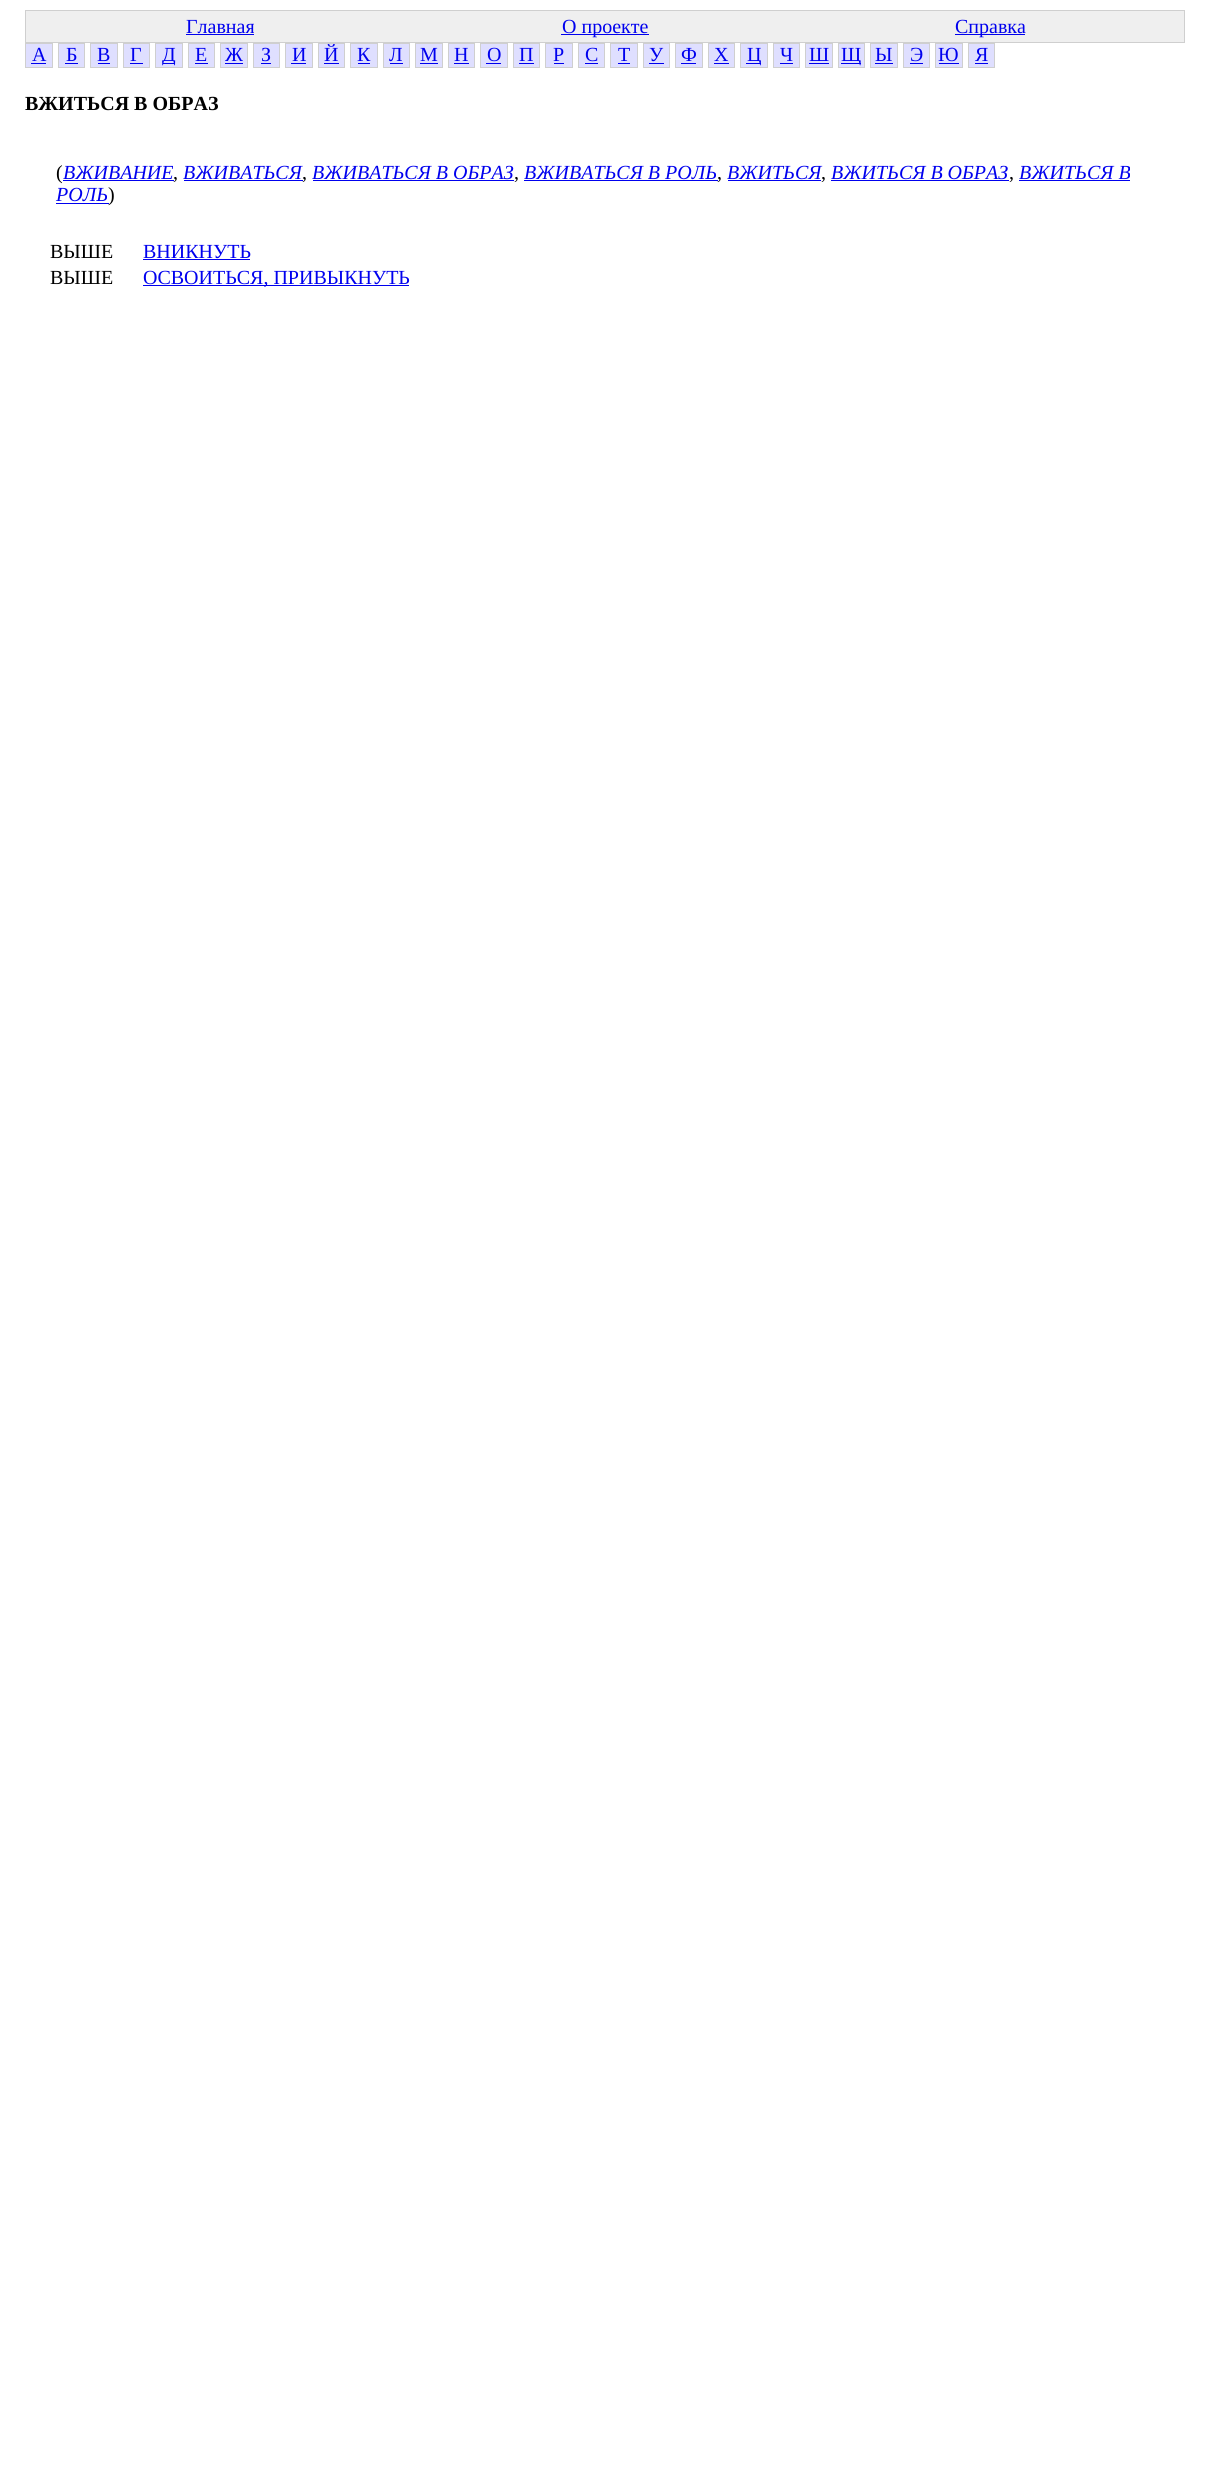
import math
import cairo



def draw(context):
    context.set_source_rgb(1, 1, 1)
    context.paint()
    context.set_source_rgb(239 / 255, 239 / 255, 239 / 255)
    context.rectangle(25.5, 10.5, 1159, 32)
    context.fill_preserve()
    context.set_source_rgb(207 / 255, 207 / 255, 207 / 255)
    context.set_line_width(1)
    context.stroke()
    context.set_source_rgb(0, 0, 238 / 255)
    context.rectangle(186, 34, 68, 1)
    context.fill()
    context.rectangle(561, 34, 88, 1)
    context.fill()
    context.rectangle(955, 34, 70, 1)
    context.fill()
    context.set_source_rgb(223 / 255, 223 / 255, 1)
    context.rectangle(25.5, 43.5, 27, 24)
    context.fill_preserve()
    context.set_source_rgb(207 / 255, 207 / 255, 207 / 255)
    context.stroke()
    context.set_source_rgb(0, 0, 238 / 255)
    context.rectangle(31, 63, 15, 1)
    context.fill()
    context.set_source_rgb(223 / 255, 223 / 255, 1)
    context.rectangle(58.5, 43.5, 26, 24)
    context.fill_preserve()
    context.set_source_rgb(207 / 255, 207 / 255, 207 / 255)
    context.stroke()
    context.set_source_rgb(0, 0, 238 / 255)
    context.rectangle(65, 63, 13, 1)
    context.fill()
    context.set_source_rgb(223 / 255, 223 / 255, 1)
    context.rectangle(90.5, 43.5, 27, 24)
    context.fill_preserve()
    context.set_source_rgb(207 / 255, 207 / 255, 207 / 255)
    context.stroke()
    context.set_source_rgb(0, 0, 238 / 255)
    context.rectangle(98, 63, 12, 1)
    context.fill()
    context.set_source_rgb(223 / 255, 223 / 255, 1)
    context.rectangle(123.5, 43.5, 26, 24)
    context.fill_preserve()
    context.set_source_rgb(207 / 255, 207 / 255, 207 / 255)
    context.stroke()
    context.set_source_rgb(0, 0, 238 / 255)
    context.rectangle(130, 63, 13, 1)
    context.fill()
    context.set_source_rgb(223 / 255, 223 / 255, 1)
    context.rectangle(155.5, 43.5, 27, 24)
    context.fill_preserve()
    context.set_source_rgb(207 / 255, 207 / 255, 207 / 255)
    context.stroke()
    context.set_source_rgb(0, 0, 238 / 255)
    context.rectangle(163, 63, 12, 1)
    context.fill()
    context.set_source_rgb(223 / 255, 223 / 255, 1)
    context.rectangle(188.5, 43.5, 26, 24)
    context.fill_preserve()
    context.set_source_rgb(207 / 255, 207 / 255, 207 / 255)
    context.stroke()
    context.set_source_rgb(0, 0, 238 / 255)
    context.rectangle(195, 63, 13, 1)
    context.fill()
    context.set_source_rgb(223 / 255, 223 / 255, 1)
    context.rectangle(220.5, 43.5, 27, 24)
    context.fill_preserve()
    context.set_source_rgb(207 / 255, 207 / 255, 207 / 255)
    context.stroke()
    context.set_source_rgb(0, 0, 238 / 255)
    context.rectangle(225, 63, 18, 1)
    context.fill()
    context.set_source_rgb(223 / 255, 223 / 255, 1)
    context.rectangle(253.5, 43.5, 26, 24)
    context.fill_preserve()
    context.set_source_rgb(207 / 255, 207 / 255, 207 / 255)
    context.stroke()
    context.set_source_rgb(0, 0, 238 / 255)
    context.rectangle(261, 63, 10, 1)
    context.fill()
    context.set_source_rgb(223 / 255, 223 / 255, 1)
    context.rectangle(285.5, 43.5, 27, 24)
    context.fill_preserve()
    context.set_source_rgb(207 / 255, 207 / 255, 207 / 255)
    context.stroke()
    context.set_source_rgb(0, 0, 238 / 255)
    context.rectangle(291, 63, 15, 1)
    context.fill()
    context.set_source_rgb(223 / 255, 223 / 255, 1)
    context.rectangle(318.5, 43.5, 26, 24)
    context.fill_preserve()
    context.set_source_rgb(207 / 255, 207 / 255, 207 / 255)
    context.stroke()
    context.set_source_rgb(0, 0, 238 / 255)
    context.rectangle(324, 63, 15, 1)
    context.fill()
    context.set_source_rgb(223 / 255, 223 / 255, 1)
    context.rectangle(350.5, 43.5, 27, 24)
    context.fill_preserve()
    context.set_source_rgb(207 / 255, 207 / 255, 207 / 255)
    context.stroke()
    context.set_source_rgb(0, 0, 238 / 255)
    context.rectangle(358, 63, 12, 1)
    context.fill()
    context.set_source_rgb(223 / 255, 223 / 255, 1)
    context.rectangle(383.5, 43.5, 26, 24)
    context.fill_preserve()
    context.set_source_rgb(207 / 255, 207 / 255, 207 / 255)
    context.stroke()
    context.set_source_rgb(0, 0, 238 / 255)
    context.rectangle(390, 63, 13, 1)
    context.fill()
    context.set_source_rgb(223 / 255, 223 / 255, 1)
    context.rectangle(415.5, 43.5, 27, 24)
    context.fill_preserve()
    context.set_source_rgb(207 / 255, 207 / 255, 207 / 255)
    context.stroke()
    context.set_source_rgb(0, 0, 238 / 255)
    context.rectangle(420, 63, 18, 1)
    context.fill()
    context.set_source_rgb(223 / 255, 223 / 255, 1)
    context.rectangle(448.5, 43.5, 26, 24)
    context.fill_preserve()
    context.set_source_rgb(207 / 255, 207 / 255, 207 / 255)
    context.stroke()
    context.set_source_rgb(0, 0, 238 / 255)
    context.rectangle(454, 63, 15, 1)
    context.fill()
    context.set_source_rgb(223 / 255, 223 / 255, 1)
    context.rectangle(480.5, 43.5, 27, 24)
    context.fill_preserve()
    context.set_source_rgb(207 / 255, 207 / 255, 207 / 255)
    context.stroke()
    context.set_source_rgb(0, 0, 238 / 255)
    context.rectangle(486, 63, 15, 1)
    context.fill()
    context.set_source_rgb(223 / 255, 223 / 255, 1)
    context.rectangle(513.5, 43.5, 26, 24)
    context.fill_preserve()
    context.set_source_rgb(207 / 255, 207 / 255, 207 / 255)
    context.stroke()
    context.set_source_rgb(0, 0, 238 / 255)
    context.rectangle(519, 63, 15, 1)
    context.fill()
    context.set_source_rgb(223 / 255, 223 / 255, 1)
    context.rectangle(545.5, 43.5, 27, 24)
    context.fill_preserve()
    context.set_source_rgb(207 / 255, 207 / 255, 207 / 255)
    context.stroke()
    context.set_source_rgb(0, 0, 238 / 255)
    context.rectangle(554, 63, 10, 1)
    context.fill()
    context.set_source_rgb(223 / 255, 223 / 255, 1)
    context.rectangle(578.5, 43.5, 26, 24)
    context.fill_preserve()
    context.set_source_rgb(207 / 255, 207 / 255, 207 / 255)
    context.stroke()
    context.set_source_rgb(0, 0, 238 / 255)
    context.rectangle(585, 63, 13, 1)
    context.fill()
    context.set_source_rgb(223 / 255, 223 / 255, 1)
    context.rectangle(610.5, 43.5, 27, 24)
    context.fill_preserve()
    context.set_source_rgb(207 / 255, 207 / 255, 207 / 255)
    context.stroke()
    context.set_source_rgb(0, 0, 238 / 255)
    context.rectangle(618, 63, 12, 1)
    context.fill()
    context.set_source_rgb(223 / 255, 223 / 255, 1)
    context.rectangle(643.5, 43.5, 26, 24)
    context.fill_preserve()
    context.set_source_rgb(207 / 255, 207 / 255, 207 / 255)
    context.stroke()
    context.set_source_rgb(0, 0, 238 / 255)
    context.rectangle(649, 63, 15, 1)
    context.fill()
    context.set_source_rgb(223 / 255, 223 / 255, 1)
    context.rectangle(675.5, 43.5, 27, 24)
    context.fill_preserve()
    context.set_source_rgb(207 / 255, 207 / 255, 207 / 255)
    context.stroke()
    context.set_source_rgb(0, 0, 238 / 255)
    context.rectangle(681, 63, 15, 1)
    context.fill()
    context.set_source_rgb(223 / 255, 223 / 255, 1)
    context.rectangle(708.5, 43.5, 26, 24)
    context.fill_preserve()
    context.set_source_rgb(207 / 255, 207 / 255, 207 / 255)
    context.stroke()
    context.set_source_rgb(0, 0, 238 / 255)
    context.rectangle(714, 63, 15, 1)
    context.fill()
    context.set_source_rgb(223 / 255, 223 / 255, 1)
    context.rectangle(740.5, 43.5, 27, 24)
    context.fill_preserve()
    context.set_source_rgb(207 / 255, 207 / 255, 207 / 255)
    context.stroke()
    context.set_source_rgb(0, 0, 238 / 255)
    context.rectangle(746, 63, 15, 1)
    context.fill()
    context.set_source_rgb(223 / 255, 223 / 255, 1)
    context.rectangle(773.5, 43.5, 26, 24)
    context.fill_preserve()
    context.set_source_rgb(207 / 255, 207 / 255, 207 / 255)
    context.stroke()
    context.set_source_rgb(0, 0, 238 / 255)
    context.rectangle(780, 63, 13, 1)
    context.fill()
    context.set_source_rgb(223 / 255, 223 / 255, 1)
    context.rectangle(805.5, 43.5, 27, 24)
    context.fill_preserve()
    context.set_source_rgb(207 / 255, 207 / 255, 207 / 255)
    context.stroke()
    context.set_source_rgb(0, 0, 238 / 255)
    context.rectangle(809, 63, 20, 1)
    context.fill()
    context.set_source_rgb(223 / 255, 223 / 255, 1)
    context.rectangle(838.5, 43.5, 26, 24)
    context.fill_preserve()
    context.set_source_rgb(207 / 255, 207 / 255, 207 / 255)
    context.stroke()
    context.set_source_rgb(0, 0, 238 / 255)
    context.rectangle(841, 63, 20, 1)
    context.fill()
    context.set_source_rgb(223 / 255, 223 / 255, 1)
    context.rectangle(870.5, 43.5, 27, 24)
    context.fill_preserve()
    context.set_source_rgb(207 / 255, 207 / 255, 207 / 255)
    context.stroke()
    context.set_source_rgb(0, 0, 238 / 255)
    context.rectangle(875, 63, 18, 1)
    context.fill()
    context.set_source_rgb(223 / 255, 223 / 255, 1)
    context.rectangle(903.5, 43.5, 26, 24)
    context.fill_preserve()
    context.set_source_rgb(207 / 255, 207 / 255, 207 / 255)
    context.stroke()
    context.set_source_rgb(0, 0, 238 / 255)
    context.rectangle(910, 63, 13, 1)
    context.fill()
    context.set_source_rgb(223 / 255, 223 / 255, 1)
    context.rectangle(935.5, 43.5, 27, 24)
    context.fill_preserve()
    context.set_source_rgb(207 / 255, 207 / 255, 207 / 255)
    context.stroke()
    context.set_source_rgb(0, 0, 238 / 255)
    context.rectangle(939, 63, 20, 1)
    context.fill()
    context.set_source_rgb(223 / 255, 223 / 255, 1)
    context.rectangle(968.5, 43.5, 26, 24)
    context.fill_preserve()
    context.set_source_rgb(207 / 255, 207 / 255, 207 / 255)
    context.stroke()
    context.set_source_rgb(0, 0, 238 / 255)
    context.rectangle(975, 63, 13, 1)
    context.fill()
    context.rectangle(63, 180, 111, 1)
    context.fill()
    context.rectangle(184, 180, 119, 1)
    context.fill()
    context.rectangle(313, 180, 201, 1)
    context.fill()
    context.rectangle(524, 180, 194, 1)
    context.fill()
    context.rectangle(728, 180, 93, 1)
    context.fill()
    context.rectangle(831, 180, 178, 1)
    context.fill()
    context.rectangle(1019, 180, 111, 1)
    context.fill()
    context.rectangle(56, 203, 53, 1)
    context.fill()
    context.rectangle(143, 259, 107, 1)
    context.fill()
    context.rectangle(143, 285, 266, 1)
    context.fill()
    context.select_font_face("Liberation Serif")
    context.set_font_size(20)
    context.move_to(186, 33)
    context.show_text("Главная")
    context.move_to(562, 33)
    context.show_text("О проекте")
    context.move_to(955, 33)
    context.show_text("Справка")
    context.move_to(32, 61)
    context.show_text("А")
    context.move_to(66, 61)
    context.show_text("Б")
    context.move_to(97, 61)
    context.show_text("В")
    context.move_to(130, 61)
    context.show_text("Г")
    context.move_to(162, 61)
    context.show_text("Д")
    context.move_to(195, 61)
    context.show_text("Е")
    context.move_to(225, 61)
    context.show_text("Ж")
    context.move_to(261, 61)
    context.show_text("З")
    context.move_to(292, 61)
    context.show_text("И")
    context.move_to(324, 61)
    context.show_text("Й")
    context.move_to(357, 61)
    context.show_text("К")
    context.move_to(389, 61)
    context.show_text("Л")
    context.move_to(420, 61)
    context.show_text("М")
    context.move_to(454, 61)
    context.show_text("Н")
    context.move_to(487, 61)
    context.show_text("О")
    context.move_to(519, 61)
    context.show_text("П")
    context.move_to(553, 61)
    context.show_text("Р")
    context.move_to(585, 61)
    context.show_text("С")
    context.move_to(618, 61)
    context.show_text("Т")
    context.move_to(649, 61)
    context.show_text("У")
    context.move_to(681, 61)
    context.show_text("Ф")
    context.move_to(714, 61)
    context.show_text("Х")
    context.move_to(747, 61)
    context.show_text("Ц")
    context.move_to(780, 61)
    context.show_text("Ч")
    context.move_to(809, 61)
    context.show_text("Ш")
    context.move_to(841, 61)
    context.show_text("Щ")
    context.move_to(875, 61)
    context.show_text("Ы")
    context.move_to(910, 61)
    context.show_text("Э")
    context.move_to(938, 61)
    context.show_text("Ю")
    context.move_to(975, 61)
    context.show_text("Я")
    context.select_font_face("Liberation Serif", cairo.FontSlant.NORMAL, cairo.FontWeight.BOLD)
    context.set_source_rgb(0, 0, 0)
    context.move_to(25, 110)
    context.show_text("ВЖИТЬСЯ В ОБРАЗ")
    context.select_font_face("Liberation Serif")
    context.move_to(56, 179)
    context.show_text("(")
    context.select_font_face("Liberation Serif", cairo.FontSlant.ITALIC)
    context.set_source_rgb(0, 0, 238 / 255)
    context.move_to(63, 179)
    context.show_text("ВЖИВАНИЕ")
    context.select_font_face("Liberation Serif")
    context.set_source_rgb(0, 0, 0)
    context.move_to(173, 179)
    context.show_text(",")
    context.select_font_face("Liberation Serif", cairo.FontSlant.ITALIC)
    context.set_source_rgb(0, 0, 238 / 255)
    context.move_to(183, 179)
    context.show_text("ВЖИВАТЬСЯ")
    context.select_font_face("Liberation Serif")
    context.set_source_rgb(0, 0, 0)
    context.move_to(302, 179)
    context.show_text(",")
    context.select_font_face("Liberation Serif", cairo.FontSlant.ITALIC)
    context.set_source_rgb(0, 0, 238 / 255)
    context.move_to(312, 179)
    context.show_text("ВЖИВАТЬСЯ В ОБРАЗ")
    context.select_font_face("Liberation Serif")
    context.set_source_rgb(0, 0, 0)
    context.move_to(514, 179)
    context.show_text(",")
    context.select_font_face("Liberation Serif", cairo.FontSlant.ITALIC)
    context.set_source_rgb(0, 0, 238 / 255)
    context.move_to(524, 179)
    context.show_text("ВЖИВАТЬСЯ В РОЛЬ")
    context.select_font_face("Liberation Serif")
    context.set_source_rgb(0, 0, 0)
    context.move_to(717, 179)
    context.show_text(",")
    context.select_font_face("Liberation Serif", cairo.FontSlant.ITALIC)
    context.set_source_rgb(0, 0, 238 / 255)
    context.move_to(727, 179)
    context.show_text("ВЖИТЬСЯ")
    context.select_font_face("Liberation Serif")
    context.set_source_rgb(0, 0, 0)
    context.move_to(821, 179)
    context.show_text(",")
    context.select_font_face("Liberation Serif", cairo.FontSlant.ITALIC)
    context.set_source_rgb(0, 0, 238 / 255)
    context.move_to(831, 179)
    context.show_text("ВЖИТЬСЯ В ОБРАЗ")
    context.select_font_face("Liberation Serif")
    context.set_source_rgb(0, 0, 0)
    context.move_to(1009, 179)
    context.show_text(",")
    context.select_font_face("Liberation Serif", cairo.FontSlant.ITALIC)
    context.set_source_rgb(0, 0, 238 / 255)
    context.move_to(1019, 179)
    context.show_text("ВЖИТЬСЯ В")
    context.move_to(56, 201)
    context.show_text("РОЛЬ")
    context.select_font_face("Liberation Serif")
    context.set_source_rgb(0, 0, 0)
    context.move_to(108, 201)
    context.show_text(")")
    context.move_to(50, 258)
    context.show_text("ВЫШЕ")
    context.set_source_rgb(0, 0, 238 / 255)
    context.move_to(143, 258)
    context.show_text("ВНИКНУТЬ")
    context.set_source_rgb(0, 0, 0)
    context.move_to(50, 284)
    context.show_text("ВЫШЕ")
    context.set_source_rgb(0, 0, 238 / 255)
    context.move_to(143, 284)
    context.show_text("ОСВОИТЬСЯ, ПРИВЫКНУТЬ")


surface = cairo.ImageSurface(cairo.Format.RGB24, 1210, 2490)
context = cairo.Context(surface)
options = cairo.FontOptions()
options.set_hint_metrics(cairo.HintMetrics.OFF)
options.set_hint_style(cairo.HintStyle.NONE)
context.set_font_options(options)
context.set_miter_limit(4)
draw(context)
surface.write_to_png("out.png")
